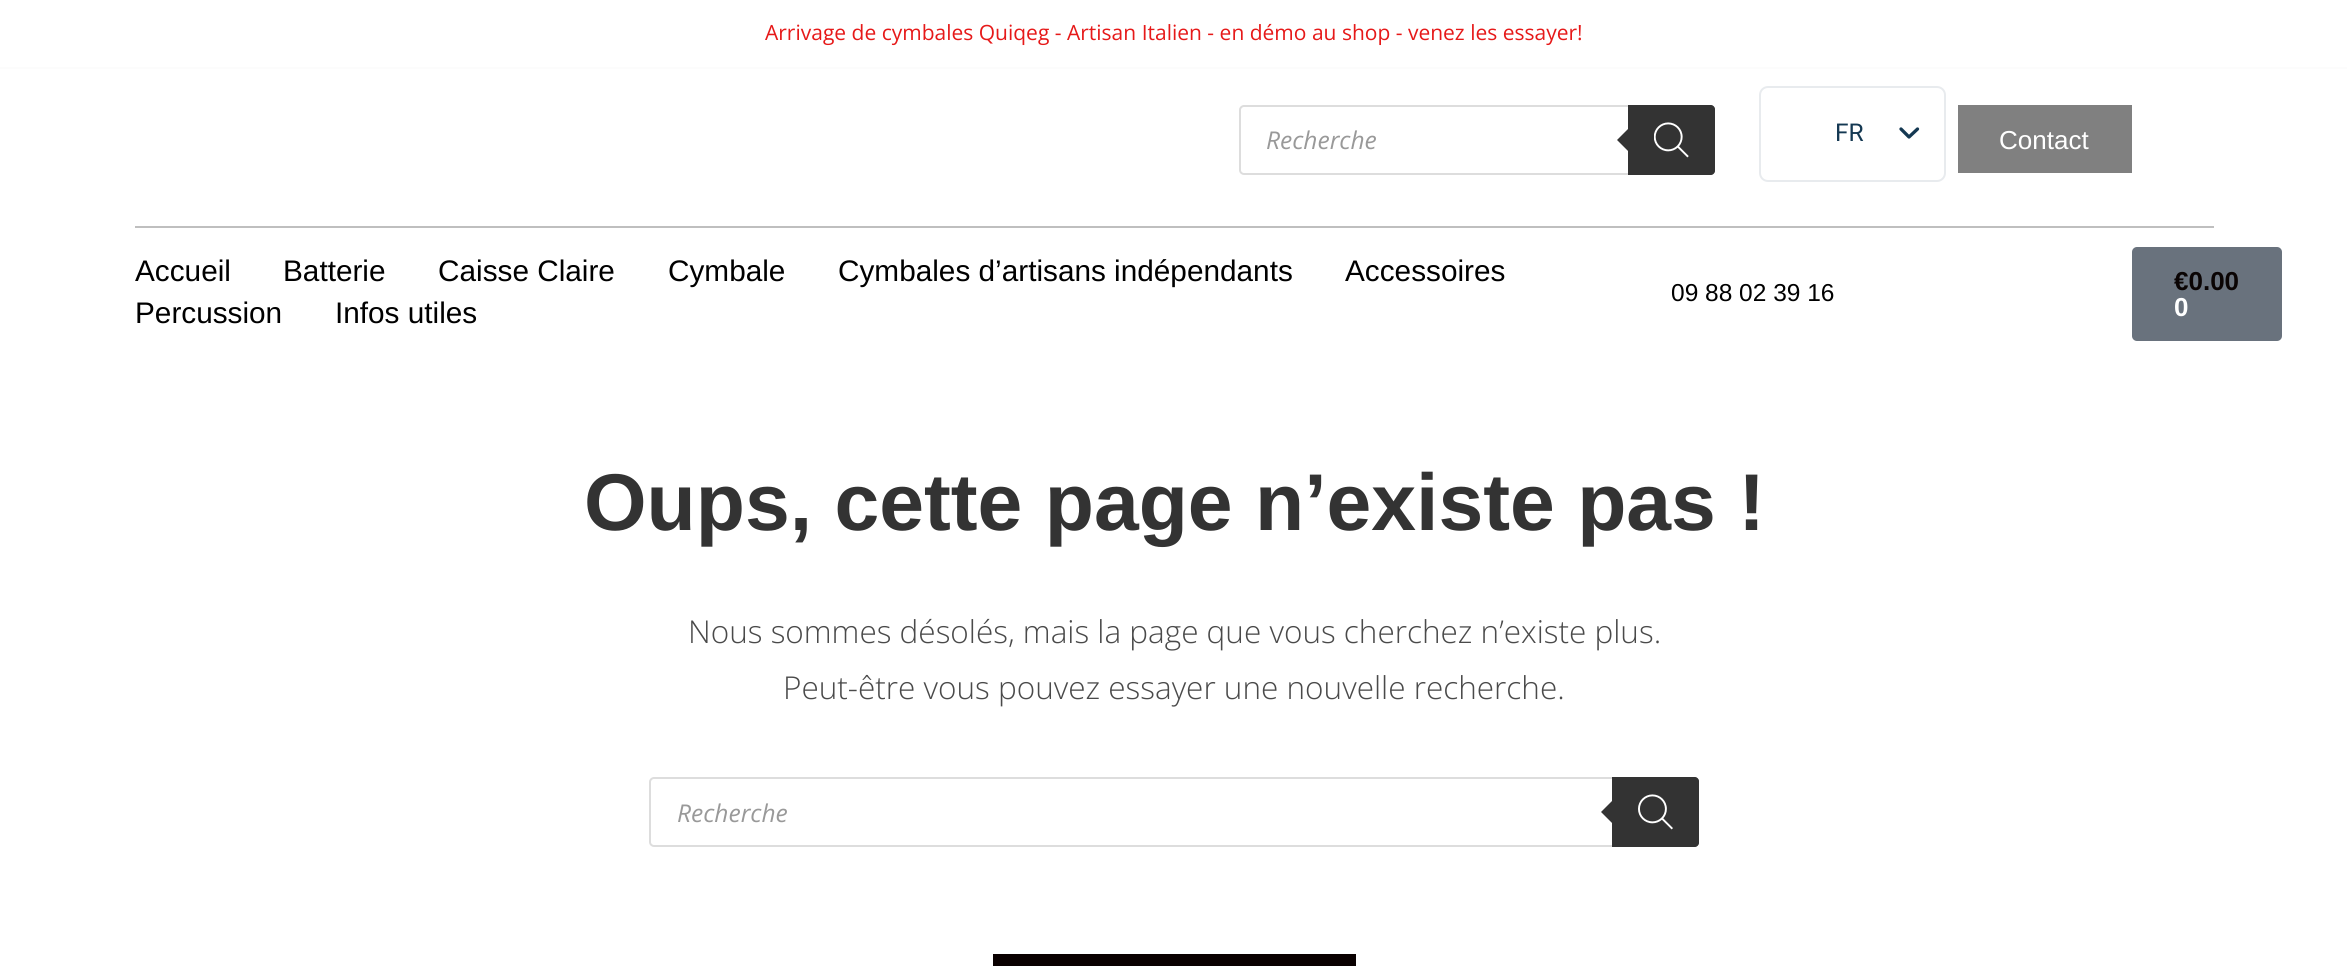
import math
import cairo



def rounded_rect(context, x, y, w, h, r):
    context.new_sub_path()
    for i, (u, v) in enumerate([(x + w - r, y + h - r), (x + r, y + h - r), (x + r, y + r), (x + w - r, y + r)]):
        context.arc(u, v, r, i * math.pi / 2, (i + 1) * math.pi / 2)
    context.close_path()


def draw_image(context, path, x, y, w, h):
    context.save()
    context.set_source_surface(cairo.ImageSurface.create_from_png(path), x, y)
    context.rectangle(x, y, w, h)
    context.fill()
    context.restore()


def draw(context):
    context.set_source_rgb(1, 1, 1)
    context.paint()
    context.set_source_rgb(252 / 255, 252 / 255, 252 / 255)
    context.rectangle(0, 67, 2347, 2)
    context.fill()
    rounded_rect(context, 1240, 106, 474, 68, 4)
    context.set_source_rgb(221 / 255, 221 / 255, 221 / 255)
    context.stroke()
    context.set_source_rgb(51 / 255, 51 / 255, 51 / 255)
    context.new_path()
    context.move_to(1628, 105)
    context.line_to(1711, 105)
    context.curve_to(1713, 105, 1715, 107, 1715, 109)
    context.line_to(1715, 171)
    context.curve_to(1715, 173, 1713, 175, 1711, 175)
    context.line_to(1628, 175)
    context.close_path()
    context.fill()
    context.new_path()
    context.move_to(1631, 126)
    context.line_to(1631, 154)
    context.line_to(1617, 140)
    context.close_path()
    context.fill()
    draw_image(context, "images/1.png", 1654, 122, 35, 36)
    rounded_rect(context, 1760, 87, 185, 94, 8)
    context.set_source_rgb(232 / 255, 235 / 255, 238 / 255)
    context.stroke()
    context.new_path()
    context.move_to(1901, 129)
    context.line_to(1909, 137)
    context.line_to(1917.5, 129)
    context.set_source_rgb(20 / 255, 56 / 255, 82 / 255)
    context.set_line_width(3.3)
    context.set_line_cap(cairo.LineCap.ROUND)
    context.set_line_join(cairo.LineJoin.ROUND)
    context.stroke()
    context.set_source_rgb(128 / 255, 128 / 255, 128 / 255)
    context.rectangle(1958, 105, 174, 68)
    context.fill()
    context.set_source_rgb(191 / 255, 191 / 255, 191 / 255)
    context.rectangle(135, 226, 2079, 2)
    context.fill()
    context.set_source_rgb(105 / 255, 114 / 255, 125 / 255)
    rounded_rect(context, 2132, 247, 150, 94, 5)
    context.fill()
    rounded_rect(context, 650, 778, 1048, 68, 4)
    context.set_source_rgb(221 / 255, 221 / 255, 221 / 255)
    context.set_line_width(2)
    context.set_line_cap(cairo.LineCap.BUTT)
    context.set_line_join(cairo.LineJoin.MITER)
    context.stroke()
    context.set_source_rgb(51 / 255, 51 / 255, 51 / 255)
    context.new_path()
    context.move_to(1612, 777)
    context.line_to(1695, 777)
    context.curve_to(1697, 777, 1699, 779, 1699, 781)
    context.line_to(1699, 843)
    context.curve_to(1699, 845, 1697, 847, 1695, 847)
    context.line_to(1612, 847)
    context.close_path()
    context.fill()
    context.new_path()
    context.move_to(1615, 798)
    context.line_to(1615, 826)
    context.line_to(1601, 812)
    context.close_path()
    context.fill()
    draw_image(context, "images/2.png", 1638, 794, 35, 36)
    context.set_source_rgb(10 / 255, 0, 0)
    context.rectangle(993, 954, 363, 12)
    context.fill()
    context.select_font_face("Open Sans")
    context.set_font_size(21)
    context.set_source_rgb(230 / 255, 25 / 255, 25 / 255)
    context.move_to(765, 40)
    context.show_text("Arrivage de cymbales Quiqeg - Artisan Italien - en démo au shop - venez les essayer!")
    context.select_font_face("Open Sans", cairo.FontSlant.ITALIC)
    context.set_font_size(24.5)
    context.set_source_rgb(153 / 255, 153 / 255, 153 / 255)
    context.move_to(1266, 149)
    context.show_text("Recherche")
    context.select_font_face("Roboto")
    context.set_source_rgb(20 / 255, 56 / 255, 82 / 255)
    context.move_to(1835, 141)
    context.show_text("FR")
    context.select_font_face("Liberation Sans")
    context.set_font_size(26)
    context.set_source_rgb(1, 1, 1)
    context.move_to(1999, 149)
    context.show_text("Contact")
    context.set_font_size(29.75)
    context.set_source_rgb(0, 0, 0)
    context.move_to(135, 281)
    context.show_text("Accueil")
    context.move_to(283, 281)
    context.show_text("Batterie")
    context.move_to(438, 281)
    context.show_text("Caisse Claire")
    context.move_to(668, 281)
    context.show_text("Cymbale")
    context.move_to(838, 281)
    context.show_text("Cymbales d’artisans indépendants")
    context.move_to(1345, 281)
    context.show_text("Accessoires")
    context.move_to(135, 323)
    context.show_text("Percussion")
    context.move_to(335, 323)
    context.show_text("Infos utiles")
    context.set_font_size(24.5)
    context.move_to(1671, 301)
    context.show_text("09 88 02 39 16")
    context.select_font_face("Liberation Sans", cairo.FontSlant.NORMAL, cairo.FontWeight.BOLD)
    context.set_font_size(26)
    context.set_source_rgb(10 / 255, 4 / 255, 4 / 255)
    context.move_to(2174, 290)
    context.show_text("€0.00")
    context.set_source_rgb(1, 1, 1)
    context.move_to(2174, 316)
    context.show_text("0")
    context.set_font_size(80.5)
    context.set_source_rgb(51 / 255, 51 / 255, 51 / 255)
    context.move_to(584, 530)
    context.show_text("Oups, cette page n’existe pas !")
    context.select_font_face("Open Sans Light")
    context.set_font_size(31.5)
    context.set_source_rgb(74 / 255, 74 / 255, 74 / 255)
    context.move_to(688, 643)
    context.show_text("Nous sommes désolés, mais la page que vous cherchez n’existe plus.")
    context.move_to(783, 699)
    context.show_text("Peut-être vous pouvez essayer une nouvelle recherche.")
    context.select_font_face("Open Sans", cairo.FontSlant.ITALIC)
    context.set_font_size(24.5)
    context.set_source_rgb(153 / 255, 153 / 255, 153 / 255)
    context.move_to(677, 822)
    context.show_text("Recherche")


surface = cairo.ImageSurface(cairo.Format.RGB24, 2347, 966)
context = cairo.Context(surface)
options = cairo.FontOptions()
options.set_hint_metrics(cairo.HintMetrics.OFF)
options.set_hint_style(cairo.HintStyle.NONE)
context.set_font_options(options)
context.set_miter_limit(4)
draw(context)
surface.write_to_png("out.png")
